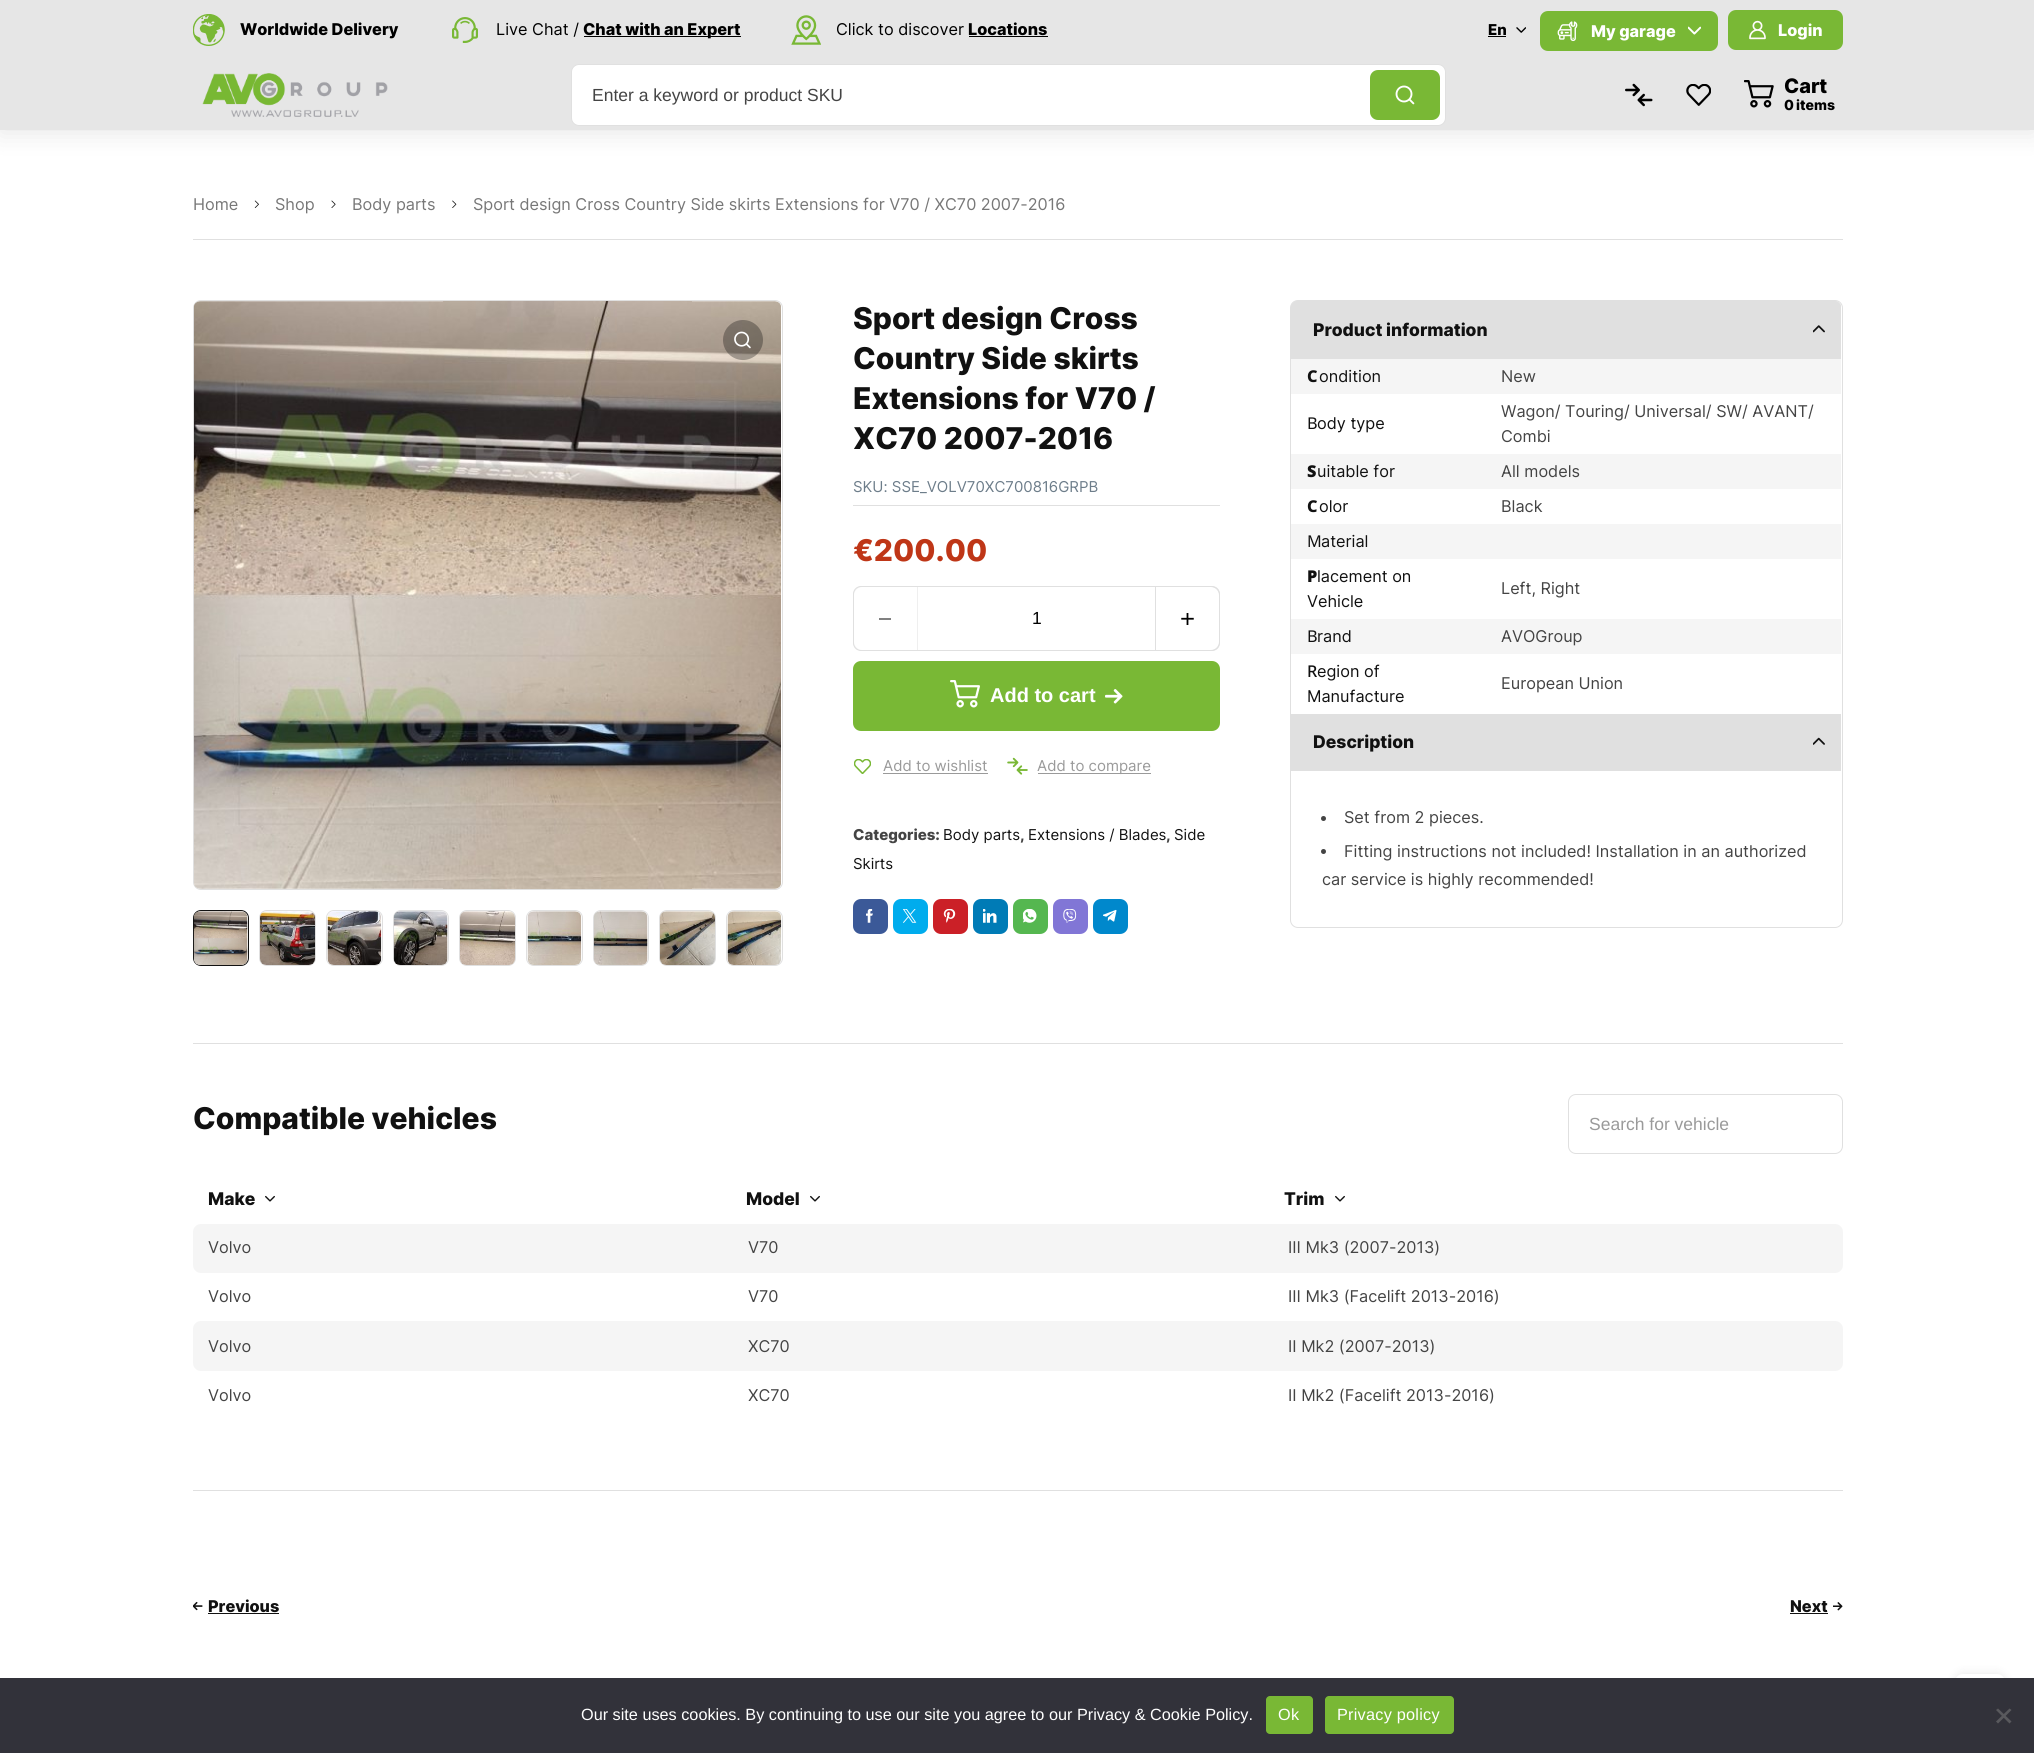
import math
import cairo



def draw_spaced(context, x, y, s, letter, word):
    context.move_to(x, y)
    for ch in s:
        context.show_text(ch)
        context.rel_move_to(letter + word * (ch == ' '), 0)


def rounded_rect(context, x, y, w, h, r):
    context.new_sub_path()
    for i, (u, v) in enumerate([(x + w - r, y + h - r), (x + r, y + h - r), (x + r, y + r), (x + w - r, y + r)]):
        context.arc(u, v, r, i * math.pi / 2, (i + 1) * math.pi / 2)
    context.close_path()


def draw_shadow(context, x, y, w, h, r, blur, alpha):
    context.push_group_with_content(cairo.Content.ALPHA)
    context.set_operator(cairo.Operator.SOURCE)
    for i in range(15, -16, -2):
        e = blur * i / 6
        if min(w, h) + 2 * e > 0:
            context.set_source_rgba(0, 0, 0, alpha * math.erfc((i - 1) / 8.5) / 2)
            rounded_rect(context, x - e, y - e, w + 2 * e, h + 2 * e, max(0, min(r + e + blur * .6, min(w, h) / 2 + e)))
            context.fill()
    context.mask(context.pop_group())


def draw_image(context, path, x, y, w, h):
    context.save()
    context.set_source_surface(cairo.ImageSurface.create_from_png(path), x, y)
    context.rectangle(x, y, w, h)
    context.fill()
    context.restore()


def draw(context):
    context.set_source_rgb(1, 1, 1)
    context.paint()
    context.set_source_rgb(0, 0, 0)
    draw_shadow(context, 0, 3, 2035, 130, 0, 12.5, 0.1)
    context.set_source_rgb(230 / 255, 230 / 255, 230 / 255)
    context.rectangle(0, 0, 2034, 130)
    context.fill()
    draw_image(context, "images/1.png", 193, 14, 32, 32)
    draw_image(context, "images/2.png", 452, 17, 26, 26)
    context.set_source_rgb(0, 0, 0)
    context.rectangle(584, 36, 157, 1)
    context.fill()
    draw_image(context, "images/3.png", 791, 15, 30, 30)
    context.rectangle(969, 36, 79, 1)
    context.fill()
    context.rectangle(1488, 36, 18, 1)
    context.fill()
    draw_image(context, "images/4.png", 1516, 27, 10, 6)
    context.set_source_rgb(121 / 255, 184 / 255, 53 / 255)
    rounded_rect(context, 1540, 11, 178, 40, 8)
    context.fill()
    draw_image(context, "images/5.png", 1557, 21, 21, 21)
    draw_image(context, "images/6.png", 1688, 26, 13, 9)
    rounded_rect(context, 1728, 10, 115, 40, 8)
    context.fill()
    draw_image(context, "images/7.png", 1749, 20, 17, 20)
    draw_image(context, "images/8.png", 202, 73, 186, 44)
    context.set_source_rgb(1, 1, 1)
    rounded_rect(context, 571.5, 64.5, 874, 61, 7.5)
    context.fill_preserve()
    context.set_source_rgb(224 / 255, 224 / 255, 224 / 255)
    context.set_line_width(1)
    context.stroke()
    context.set_source_rgb(121 / 255, 184 / 255, 53 / 255)
    rounded_rect(context, 1370, 70, 70, 50, 8)
    context.fill()
    draw_image(context, "images/9.png", 1395, 85, 20, 20)
    draw_image(context, "images/10.png", 1625, 83, 28, 24)
    draw_image(context, "images/11.png", 1686, 84, 25, 22)
    draw_image(context, "images/12.png", 1744, 80, 30, 28)
    context.set_source_rgb(224 / 255, 224 / 255, 224 / 255)
    context.rectangle(193, 239, 1650, 1)
    context.fill()
    draw_image(context, "images/13.png", 254, 200, 5, 8)
    draw_image(context, "images/14.png", 331, 200, 5, 8)
    draw_image(context, "images/15.png", 452, 200, 5, 8)
    rounded_rect(context, 193.5, 300.5, 589, 589, 7.5)
    context.stroke()
    draw_image(context, "images/16.png", 194, 301, 587, 588)
    context.set_source_rgba(0, 0, 0, 0.3)
    context.arc(743, 340, 20, 0, 2 * math.pi)
    context.fill()
    draw_image(context, "images/17.png", 734, 331, 17, 18)
    rounded_rect(context, 193.5, 910.5, 55, 55, 7.5)
    context.set_source_rgb(17 / 255, 17 / 255, 17 / 255)
    context.stroke()
    draw_image(context, "images/18.png", 193, 911, 55, 54)
    rounded_rect(context, 259.5, 910.5, 56, 55, 7.5)
    context.set_source_rgb(224 / 255, 224 / 255, 224 / 255)
    context.stroke()
    draw_image(context, "images/19.png", 260, 911, 55, 54)
    rounded_rect(context, 326.5, 910.5, 56, 55, 7.5)
    context.stroke()
    draw_image(context, "images/20.png", 327, 911, 55, 54)
    rounded_rect(context, 393.5, 910.5, 55, 55, 7.5)
    context.stroke()
    draw_image(context, "images/21.png", 393, 911, 55, 54)
    rounded_rect(context, 459.5, 910.5, 56, 55, 7.5)
    context.stroke()
    draw_image(context, "images/22.png", 460, 911, 55, 54)
    rounded_rect(context, 526.5, 910.5, 56, 55, 7.5)
    context.stroke()
    draw_image(context, "images/23.png", 527, 911, 55, 54)
    rounded_rect(context, 593.5, 910.5, 55, 55, 7.5)
    context.stroke()
    draw_image(context, "images/24.png", 593, 911, 55, 54)
    rounded_rect(context, 659.5, 910.5, 56, 55, 7.5)
    context.stroke()
    draw_image(context, "images/25.png", 660, 911, 55, 54)
    rounded_rect(context, 726.5, 910.5, 56, 55, 7.5)
    context.stroke()
    draw_image(context, "images/26.png", 727, 911, 55, 54)
    context.rectangle(853, 505, 367, 1)
    context.fill()
    rounded_rect(context, 853.5, 586.5, 366, 64, 7.5)
    context.stroke()
    context.set_source_rgb(1, 1, 1)
    rounded_rect(context, 854, 588, 365, 62, 8)
    context.fill()
    context.new_path()
    context.move_to(862, 586.5)
    context.line_to(917.5, 586.5)
    context.line_to(917.5, 650.5)
    context.line_to(862, 650.5)
    context.curve_to(857.5, 650.5, 853.5, 646.5, 853.5, 642)
    context.line_to(853.5, 595)
    context.curve_to(853.5, 590.5, 857.5, 586.5, 862, 586.5)
    context.close_path()
    context.set_source_rgba(224 / 255, 224 / 255, 224 / 255, 0.5)
    context.stroke()
    context.set_source_rgb(128 / 255, 128 / 255, 128 / 255)
    context.rectangle(879, 618, 12, 2)
    context.fill()
    context.new_path()
    context.move_to(1155.5, 586.5)
    context.line_to(1211, 586.5)
    context.curve_to(1215.5, 586.5, 1219.5, 590.5, 1219.5, 595)
    context.line_to(1219.5, 642)
    context.curve_to(1219.5, 646.5, 1215.5, 650.5, 1211, 650.5)
    context.line_to(1155.5, 650.5)
    context.close_path()
    context.set_source_rgb(224 / 255, 224 / 255, 224 / 255)
    context.stroke()
    draw_image(context, "images/27.png", 1181, 613, 13, 12)
    context.set_source_rgb(121 / 255, 184 / 255, 53 / 255)
    rounded_rect(context, 853, 661, 367, 70, 8)
    context.fill()
    draw_image(context, "images/28.png", 950, 680, 30, 28)
    draw_image(context, "images/29.png", 1105, 689, 18, 15)
    draw_image(context, "images/30.png", 854, 759, 17, 15)
    context.set_source_rgb(154 / 255, 154 / 255, 154 / 255)
    context.rectangle(883, 773, 105, 1)
    context.fill()
    draw_image(context, "images/31.png", 1007, 757, 21, 18)
    context.rectangle(1038, 773, 113, 1)
    context.fill()
    context.set_source_rgb(59 / 255, 89 / 255, 152 / 255)
    rounded_rect(context, 853, 899, 35, 35, 8)
    context.fill()
    draw_image(context, "images/32.png", 866, 909, 7, 14)
    context.set_source_rgb(0, 172 / 255, 237 / 255)
    rounded_rect(context, 893, 899, 35, 35, 8)
    context.fill()
    draw_image(context, "images/33.png", 903, 909, 14, 14)
    context.set_source_rgb(203 / 255, 32 / 255, 39 / 255)
    rounded_rect(context, 933, 899, 35, 35, 8)
    context.fill()
    draw_image(context, "images/34.png", 943, 909, 13, 14)
    context.set_source_rgb(0, 123 / 255, 182 / 255)
    rounded_rect(context, 973, 899, 35, 35, 8)
    context.fill()
    draw_image(context, "images/35.png", 983, 909, 14, 14)
    context.set_source_rgb(85 / 255, 183 / 255, 80 / 255)
    rounded_rect(context, 1013, 899, 35, 35, 8)
    context.fill()
    draw_image(context, "images/36.png", 1023, 909, 14, 14)
    context.set_source_rgb(129 / 255, 118 / 255, 214 / 255)
    rounded_rect(context, 1053, 899, 35, 35, 8)
    context.fill()
    draw_image(context, "images/37.png", 1063, 909, 14, 14)
    context.set_source_rgb(0, 136 / 255, 204 / 255)
    rounded_rect(context, 1093, 899, 35, 35, 8)
    context.fill()
    draw_image(context, "images/38.png", 1103, 909, 14, 13)
    rounded_rect(context, 1290.5, 300.5, 552, 627, 7.5)
    context.set_source_rgb(224 / 255, 224 / 255, 224 / 255)
    context.stroke()
    context.new_path()
    context.move_to(1297, 301)
    context.line_to(1835, 301)
    context.curve_to(1838.5, 301, 1841, 303.5, 1841, 307)
    context.line_to(1841, 359)
    context.line_to(1291, 359)
    context.line_to(1291, 307)
    context.curve_to(1291, 303.5, 1293.5, 301, 1297, 301)
    context.close_path()
    context.fill()
    context.set_fill_rule(cairo.FillRule.EVEN_ODD)
    context.new_path()
    context.move_to(1291, 307)
    context.line_to(1291, 359)
    context.line_to(1841, 359)
    context.line_to(1841, 307)
    context.curve_to(1841, 306, 1841, 305, 1840, 304)
    context.line_to(1840, 358)
    context.line_to(1292, 358)
    context.line_to(1292, 304)
    context.close_path()
    context.move_to(1297, 301)
    context.line_to(1294, 302)
    context.line_to(1838, 302)
    context.line_to(1835, 301)
    context.close_path()
    context.fill()
    draw_image(context, "images/39.png", 1813, 325, 12, 8)
    context.set_source_rgb(245 / 255, 245 / 255, 245 / 255)
    context.rectangle(1291, 359, 550, 35)
    context.fill()
    context.rectangle(1291, 454, 550, 35)
    context.fill()
    context.rectangle(1291, 524, 550, 35)
    context.fill()
    context.rectangle(1291, 619, 550, 35)
    context.fill()
    context.set_source_rgb(224 / 255, 224 / 255, 224 / 255)
    context.rectangle(1291, 714, 550, 57)
    context.fill()
    draw_image(context, "images/40.png", 1813, 737, 12, 8)
    context.set_source_rgb(68 / 255, 68 / 255, 68 / 255)
    context.arc(1323.5, 818.5, 2.5, 0, 2 * math.pi)
    context.fill()
    context.arc(1323.5, 851.5, 2.5, 0, 2 * math.pi)
    context.fill()
    context.set_source_rgb(224 / 255, 224 / 255, 224 / 255)
    context.rectangle(193, 1043, 1650, 1)
    context.fill()
    rounded_rect(context, 1568.5, 1094.5, 274, 59, 7.5)
    context.stroke()
    draw_image(context, "images/41.png", 265, 1195, 10, 7)
    draw_image(context, "images/41.png", 810, 1195, 10, 7)
    draw_image(context, "images/41.png", 1335, 1195, 10, 7)
    context.set_source_rgb(245 / 255, 245 / 255, 245 / 255)
    rounded_rect(context, 193, 1224, 1650, 49, 8)
    context.fill()
    rounded_rect(context, 193, 1321, 1650, 50, 8)
    context.fill()
    context.set_source_rgb(224 / 255, 224 / 255, 224 / 255)
    context.rectangle(193, 1490, 1650, 1)
    context.fill()
    draw_image(context, "images/42.png", 193, 1601, 10, 10)
    context.set_source_rgb(17 / 255, 17 / 255, 17 / 255)
    context.rectangle(208, 1613, 71, 1)
    context.fill()
    context.rectangle(1790, 1613, 38, 1)
    context.fill()
    draw_image(context, "images/43.png", 1833, 1602, 10, 9)
    context.set_source_rgb(0, 0, 0)
    draw_shadow(context, 1955, 1674, 50, 50, 8, 5, 0.1)
    context.set_source_rgb(1, 1, 1)
    rounded_rect(context, 1955, 1674, 50, 50, 8)
    context.fill()
    context.set_source_rgb(50 / 255, 50 / 255, 58 / 255)
    context.rectangle(0, 1678, 2034, 75)
    context.fill()
    context.set_source_rgb(121 / 255, 184 / 255, 53 / 255)
    rounded_rect(context, 1266, 1696, 47, 38, 4)
    context.fill()
    rounded_rect(context, 1325, 1696, 129, 38, 4)
    context.fill()
    context.set_source_rgb(89 / 255, 89 / 255, 93 / 255)
    context.set_fill_rule(cairo.FillRule.WINDING)
    context.new_path()
    context.move_to(2009.5, 1708.5)
    context.line_to(2011.5, 1710)
    context.line_to(1998, 1723.5)
    context.line_to(1996, 1721.5)
    context.close_path()
    context.fill()
    context.new_path()
    context.move_to(1996, 1710)
    context.line_to(1998, 1708.5)
    context.line_to(2011.5, 1721.5)
    context.line_to(2009.5, 1723.5)
    context.close_path()
    context.fill()
    context.select_font_face("Inter ExtraBold")
    context.set_font_size(16.25)
    context.set_source_rgb(0, 0, 0)
    context.move_to(240, 35)
    context.show_text("Worldwide Delivery")
    context.select_font_face("Inter")
    context.move_to(496, 35)
    context.show_text("Live Chat /")
    context.select_font_face("Inter ExtraBold")
    context.move_to(583, 35)
    context.show_text("Chat with an Expert")
    context.select_font_face("Inter")
    context.move_to(836, 35)
    context.show_text("Click to discover")
    context.select_font_face("Inter ExtraBold")
    context.move_to(968, 35)
    context.show_text("Locations")
    context.set_font_size(15)
    context.move_to(1488, 35)
    context.show_text("En")
    context.set_font_size(16.25)
    context.set_source_rgb(1, 1, 1)
    context.move_to(1591, 37)
    context.show_text("My garage")
    context.move_to(1778, 36)
    context.show_text("Login")
    context.select_font_face("Liberation Sans")
    context.set_font_size(17.5)
    context.set_source_rgb(68 / 255, 68 / 255, 68 / 255)
    context.move_to(592, 101)
    context.show_text("Enter a keyword or product SKU")
    context.select_font_face("Inter ExtraBold")
    context.set_font_size(20)
    context.set_source_rgb(0, 0, 0)
    context.move_to(1784, 93)
    context.show_text("Cart")
    context.set_font_size(14)
    context.move_to(1784, 110)
    context.show_text("0")
    context.move_to(1796, 110)
    context.show_text("items")
    context.select_font_face("Inter")
    context.set_font_size(16.25)
    context.set_source_rgb(119 / 255, 119 / 255, 119 / 255)
    context.move_to(193, 210)
    context.show_text("Home")
    context.move_to(275, 210)
    context.show_text("Shop")
    context.move_to(352, 210)
    context.show_text("Body parts")
    context.move_to(473, 210)
    context.show_text("Sport design Cross Country Side skirts Extensions for V70 / XC70 2007-2016")
    context.select_font_face("Inter ExtraBold")
    context.set_font_size(30)
    context.set_source_rgb(17 / 255, 17 / 255, 17 / 255)
    context.move_to(853, 329)
    context.show_text("Sport design Cross")
    context.move_to(853, 369)
    context.show_text("Country Side skirts")
    context.move_to(853, 409)
    context.show_text("Extensions for V70 /")
    context.move_to(853, 449)
    context.show_text("XC70 2007-2016")
    context.select_font_face("Inter")
    context.set_font_size(15)
    context.set_source_rgb(109 / 255, 125 / 255, 138 / 255)
    context.move_to(853, 492)
    context.show_text("SKU: SSE_VOLV70XC700816GRPB")
    context.select_font_face("Inter ExtraBold")
    context.set_font_size(30)
    context.set_source_rgb(191 / 255, 54 / 255, 23 / 255)
    context.move_to(853, 561)
    context.show_text("€200.00")
    context.select_font_face("Liberation Sans")
    context.set_font_size(17.5)
    context.set_source_rgb(0, 0, 0)
    context.move_to(1032, 624)
    context.show_text("1")
    context.select_font_face("Liberation Sans", cairo.FontSlant.NORMAL, cairo.FontWeight.BOLD)
    context.set_font_size(20)
    context.set_source_rgb(1, 1, 1)
    context.move_to(990, 702)
    context.show_text("Add to cart")
    context.select_font_face("Inter")
    context.set_font_size(15)
    context.set_source_rgb(154 / 255, 154 / 255, 154 / 255)
    context.move_to(883, 771)
    context.show_text("Add to wishlist")
    context.move_to(1037, 771)
    context.show_text("Add to compare")
    context.select_font_face("Inter ExtraBold")
    context.set_source_rgb(68 / 255, 68 / 255, 68 / 255)
    context.move_to(853, 840)
    context.show_text("Categories:")
    context.select_font_face("Inter")
    context.set_source_rgb(17 / 255, 17 / 255, 17 / 255)
    context.move_to(943, 840)
    context.show_text("Body parts")
    context.select_font_face("Inter ExtraBold")
    context.set_source_rgb(68 / 255, 68 / 255, 68 / 255)
    context.move_to(1020, 840)
    context.show_text(",")
    context.select_font_face("Inter")
    context.set_source_rgb(17 / 255, 17 / 255, 17 / 255)
    context.move_to(1028, 840)
    context.show_text("Extensions / Blades")
    context.select_font_face("Inter ExtraBold")
    context.set_source_rgb(68 / 255, 68 / 255, 68 / 255)
    context.move_to(1166, 840)
    context.show_text(",")
    context.select_font_face("Inter")
    context.set_source_rgb(17 / 255, 17 / 255, 17 / 255)
    context.move_to(1174, 840)
    context.show_text("Side")
    context.move_to(853, 869)
    context.show_text("Skirts")
    context.select_font_face("Inter ExtraBold")
    context.set_font_size(17.5)
    context.move_to(1313, 336)
    context.show_text("Product information")
    context.select_font_face("Noto Sans ExtraBold")
    context.set_font_size(16.25)
    context.move_to(1307, 382)
    context.show_text("C")
    context.select_font_face("Inter")
    context.move_to(1319, 382)
    context.show_text("ondition")
    context.set_source_rgb(68 / 255, 68 / 255, 68 / 255)
    context.move_to(1501, 382)
    context.show_text("New")
    context.select_font_face("Noto Sans")
    context.set_source_rgb(17 / 255, 17 / 255, 17 / 255)
    context.move_to(1307, 429)
    context.show_text("B")
    context.select_font_face("Inter")
    context.move_to(1317, 429)
    context.show_text("ody type")
    context.set_source_rgb(68 / 255, 68 / 255, 68 / 255)
    context.move_to(1501, 417)
    context.show_text("Wagon/ Touring/ Universal/ SW/ AVANT/")
    context.move_to(1501, 442)
    context.show_text("Combi")
    context.select_font_face("Noto Sans Black")
    context.set_source_rgb(17 / 255, 17 / 255, 17 / 255)
    context.move_to(1307, 477)
    context.show_text("S")
    context.select_font_face("Inter")
    context.move_to(1317, 477)
    context.show_text("uitable for")
    context.set_source_rgb(68 / 255, 68 / 255, 68 / 255)
    context.move_to(1501, 477)
    context.show_text("All models")
    context.select_font_face("Noto Sans ExtraBold")
    context.set_source_rgb(17 / 255, 17 / 255, 17 / 255)
    context.move_to(1307, 512)
    context.show_text("C")
    context.select_font_face("Inter")
    context.move_to(1319, 512)
    context.show_text("olor")
    context.set_source_rgb(68 / 255, 68 / 255, 68 / 255)
    context.move_to(1501, 512)
    context.show_text("Black")
    context.select_font_face("Noto Sans")
    context.set_source_rgb(17 / 255, 17 / 255, 17 / 255)
    context.move_to(1307, 547)
    context.show_text("M")
    context.select_font_face("Inter")
    context.move_to(1321, 547)
    context.show_text("aterial")
    context.select_font_face("Noto Sans Black")
    context.move_to(1307, 582)
    context.show_text("P")
    context.select_font_face("Inter")
    context.move_to(1317, 582)
    context.show_text("lacement on")
    context.move_to(1307, 607)
    context.show_text("Vehicle")
    context.set_source_rgb(68 / 255, 68 / 255, 68 / 255)
    context.move_to(1501, 594)
    context.show_text("Left, Right")
    context.select_font_face("Noto Sans")
    context.set_source_rgb(17 / 255, 17 / 255, 17 / 255)
    context.move_to(1307, 642)
    context.show_text("B")
    context.select_font_face("Inter")
    context.move_to(1317, 642)
    context.show_text("rand")
    context.set_source_rgb(68 / 255, 68 / 255, 68 / 255)
    context.move_to(1501, 642)
    context.show_text("AVOGroup")
    context.select_font_face("Noto Sans Medium")
    context.set_source_rgb(17 / 255, 17 / 255, 17 / 255)
    context.move_to(1307, 677)
    context.show_text("R")
    context.select_font_face("Inter")
    context.move_to(1317, 677)
    context.show_text("egion of")
    context.move_to(1307, 702)
    context.show_text("Manufacture")
    context.set_source_rgb(68 / 255, 68 / 255, 68 / 255)
    context.move_to(1501, 689)
    context.show_text("European Union")
    context.select_font_face("Inter ExtraBold")
    context.set_font_size(17.5)
    context.set_source_rgb(17 / 255, 17 / 255, 17 / 255)
    context.move_to(1313, 748)
    context.show_text("Description")
    context.select_font_face("Inter")
    context.set_font_size(16.25)
    context.set_source_rgb(68 / 255, 68 / 255, 68 / 255)
    context.move_to(1344, 823)
    context.show_text("Set from 2 pieces.")
    context.move_to(1344, 857)
    context.show_text("Fitting instructions not included! Installation in an authorized")
    context.move_to(1322, 885)
    context.show_text("car service is highly recommended!")
    context.select_font_face("Inter ExtraBold")
    context.set_font_size(30)
    context.set_source_rgb(17 / 255, 17 / 255, 17 / 255)
    context.move_to(193, 1129)
    context.show_text("Compatible vehicles")
    context.select_font_face("Liberation Sans")
    context.set_font_size(17.5)
    context.set_source_rgb(154 / 255, 154 / 255, 154 / 255)
    context.move_to(1589, 1130)
    context.show_text("Search for vehicle")
    context.select_font_face("Inter ExtraBold")
    context.set_source_rgb(17 / 255, 17 / 255, 17 / 255)
    context.move_to(208, 1205)
    context.show_text("Make")
    context.move_to(746, 1205)
    context.show_text("Model")
    context.move_to(1284, 1205)
    context.show_text("Trim")
    context.select_font_face("Inter")
    context.set_font_size(16.25)
    context.set_source_rgb(68 / 255, 68 / 255, 68 / 255)
    context.move_to(208, 1253)
    context.show_text("Volvo")
    context.move_to(748, 1253)
    context.show_text("V70")
    context.move_to(1288, 1253)
    context.show_text("III Mk3 (2007-2013)")
    context.move_to(208, 1302)
    context.show_text("Volvo")
    context.move_to(748, 1302)
    context.show_text("V70")
    context.move_to(1288, 1302)
    context.show_text("III Mk3 (Facelift 2013-2016)")
    context.move_to(208, 1352)
    context.show_text("Volvo")
    context.move_to(748, 1352)
    context.show_text("XC70")
    context.move_to(1288, 1352)
    context.show_text("II Mk2 (2007-2013)")
    context.move_to(208, 1401)
    context.show_text("Volvo")
    context.move_to(748, 1401)
    context.show_text("XC70")
    context.move_to(1288, 1401)
    context.show_text("II Mk2 (Facelift 2013-2016)")
    context.select_font_face("Inter ExtraBold")
    context.set_source_rgb(17 / 255, 17 / 255, 17 / 255)
    context.move_to(208, 1612)
    context.show_text("Previous")
    context.move_to(1790, 1612)
    context.show_text("Next")
    context.select_font_face("Liberation Sans")
    context.set_source_rgb(1, 1, 1)
    context.move_to(581, 1720)
    context.show_text("Our site uses cookies. By continuing to use our site you agree to our Privacy & Cookie Policy.")
    draw_spaced(context, 1278, 1720, "Ok", 0.25, 0)
    draw_spaced(context, 1337, 1720, "Privacy policy", 0.25, 0)


surface = cairo.ImageSurface(cairo.Format.RGB24, 2034, 1753)
context = cairo.Context(surface)
options = cairo.FontOptions()
options.set_hint_metrics(cairo.HintMetrics.OFF)
options.set_hint_style(cairo.HintStyle.NONE)
context.set_font_options(options)
context.set_miter_limit(4)
draw(context)
surface.write_to_png("out.png")
